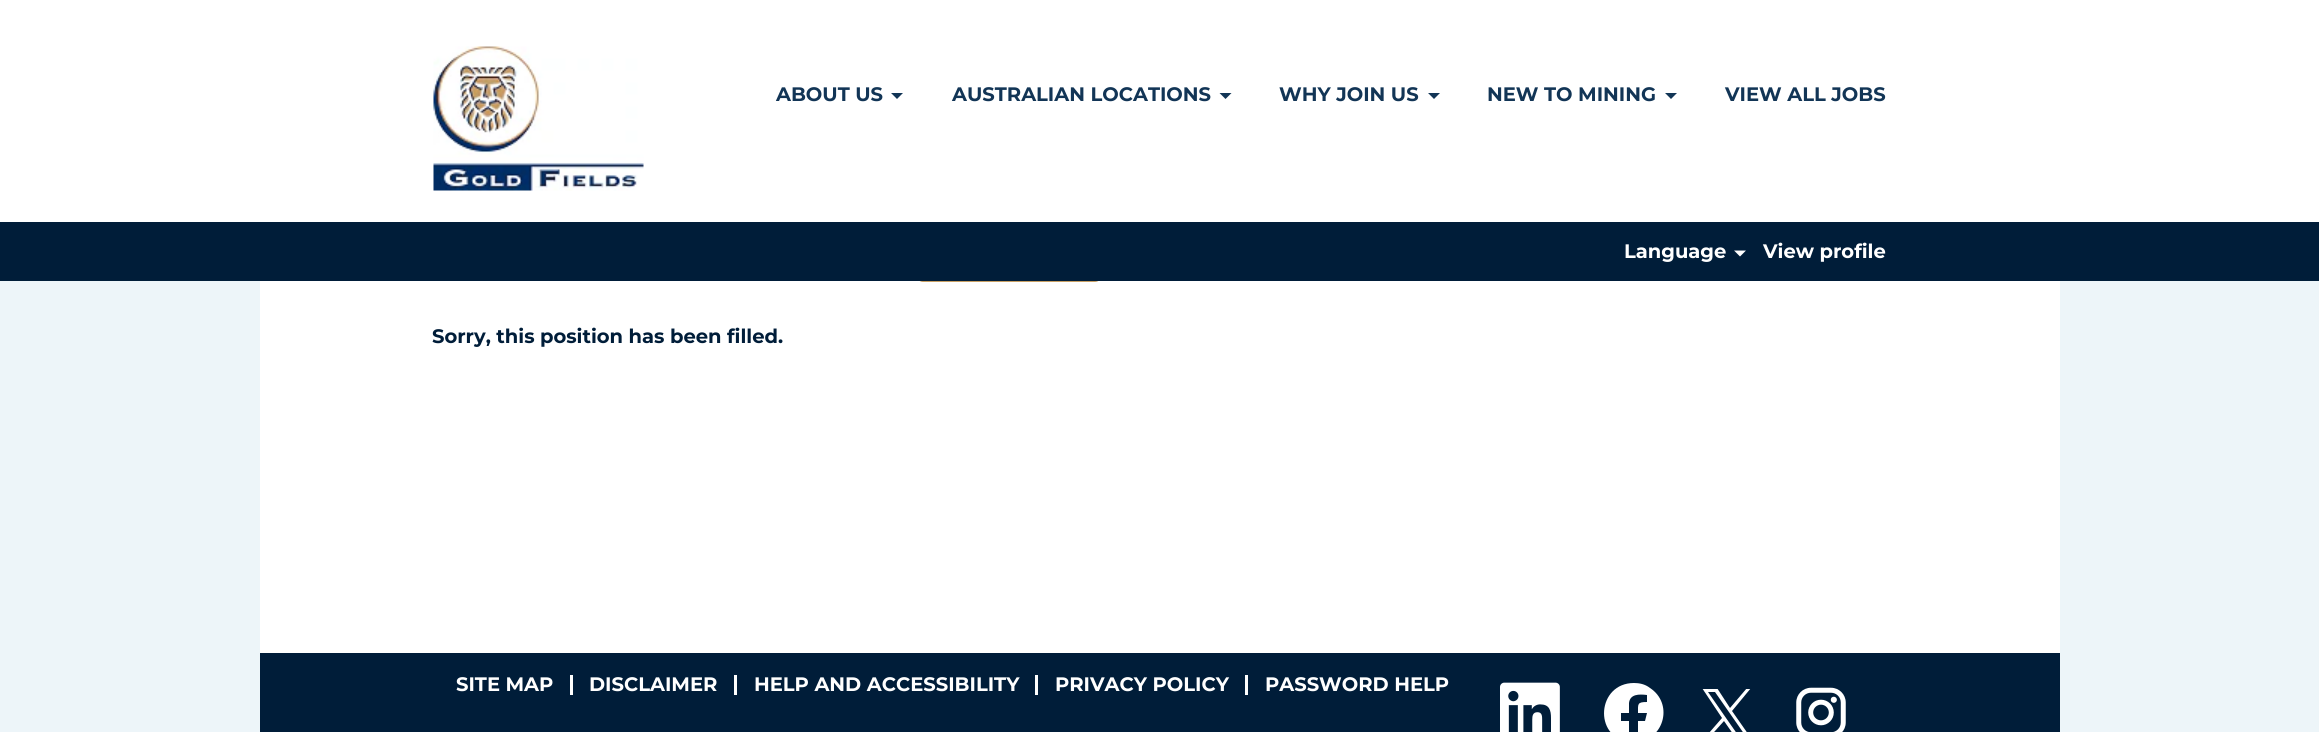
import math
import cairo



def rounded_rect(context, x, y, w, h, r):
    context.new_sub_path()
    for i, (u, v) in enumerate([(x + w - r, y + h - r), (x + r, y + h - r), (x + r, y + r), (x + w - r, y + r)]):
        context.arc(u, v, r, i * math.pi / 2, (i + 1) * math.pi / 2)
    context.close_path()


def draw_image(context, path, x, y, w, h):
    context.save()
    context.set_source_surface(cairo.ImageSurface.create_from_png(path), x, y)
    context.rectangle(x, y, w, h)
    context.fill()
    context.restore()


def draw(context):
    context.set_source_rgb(237 / 255, 245 / 255, 249 / 255)
    context.paint()
    context.set_source_rgb(1, 1, 1)
    context.rectangle(0, 0, 2319, 222)
    context.fill()
    draw_image(context, "images/1.png", 433, 46, 211, 145)
    context.set_source_rgb(18 / 255, 53 / 255, 86 / 255)
    context.new_path()
    context.move_to(891, 93)
    context.line_to(903, 93)
    context.line_to(897, 99)
    context.close_path()
    context.fill()
    context.new_path()
    context.move_to(1219.5, 93)
    context.line_to(1231.5, 93)
    context.line_to(1225.5, 99)
    context.close_path()
    context.fill()
    context.new_path()
    context.move_to(1428, 93)
    context.line_to(1440, 93)
    context.line_to(1434, 99)
    context.close_path()
    context.fill()
    context.new_path()
    context.move_to(1665, 93)
    context.line_to(1677, 93)
    context.line_to(1671, 99)
    context.close_path()
    context.fill()
    context.set_source_rgb(1, 1, 1)
    context.rectangle(260, 281, 1800, 372)
    context.fill()
    rounded_rect(context, 918, 234, 182, 47, 5)
    context.set_source_rgb(200 / 255, 160 / 255, 100 / 255)
    context.stroke()
    context.set_source_rgb(0, 29 / 255, 57 / 255)
    context.rectangle(0, 222, 2319, 59)
    context.fill()
    context.set_source_rgb(1, 1, 1)
    context.new_path()
    context.move_to(1734, 250.5)
    context.line_to(1746, 250.5)
    context.line_to(1740, 256.5)
    context.close_path()
    context.fill()
    context.set_source_rgb(0, 29 / 255, 57 / 255)
    context.rectangle(260, 653, 1800, 79)
    context.fill()
    context.set_source_rgb(1, 1, 1)
    context.rectangle(570, 675, 3, 20)
    context.fill()
    context.rectangle(734, 675, 3, 20)
    context.fill()
    context.rectangle(1035, 675, 3, 20)
    context.fill()
    context.rectangle(1245, 675, 3, 20)
    context.fill()
    draw_image(context, "images/2.png", 1500, 682, 60, 50)
    context.new_path()
    context.move_to(1634, 683)
    context.curve_to(1597, 683, 1593, 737, 1629, 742)
    context.line_to(1629, 721)
    context.line_to(1621, 721)
    context.line_to(1621, 713)
    context.line_to(1629, 713)
    context.line_to(1629, 703)
    context.curve_to(1630, 694, 1639, 694, 1647, 695)
    context.line_to(1647, 702)
    context.curve_to(1637, 702, 1638, 704, 1638, 713)
    context.line_to(1647, 713)
    context.line_to(1645, 721)
    context.line_to(1638, 721)
    context.line_to(1638, 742)
    context.curve_to(1665, 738, 1673, 703, 1650, 688)
    context.curve_to(1645, 684, 1639, 683, 1634, 683)
    context.close_path()
    context.fill()
    context.save()
    context.rectangle(1701, 689, 53, 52)
    context.clip()
    context.new_path()
    context.move_to(1732, 711)
    context.line_to(1751, 688)
    context.line_to(1747, 688)
    context.line_to(1730, 708)
    context.line_to(1717, 688)
    context.line_to(1702, 688)
    context.line_to(1722, 718)
    context.line_to(1702, 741)
    context.line_to(1706, 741)
    context.line_to(1724, 721)
    context.line_to(1738, 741)
    context.line_to(1753, 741)
    context.close_path()
    context.move_to(1726, 718)
    context.line_to(1708, 692)
    context.line_to(1715, 692)
    context.line_to(1747, 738)
    context.line_to(1740, 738)
    context.close_path()
    context.fill()
    context.restore()
    draw_image(context, "images/3.png", 1796, 687, 50, 45)
    context.select_font_face("Montserrat", cairo.FontSlant.NORMAL, cairo.FontWeight.BOLD)
    context.set_font_size(19.5)
    context.set_source_rgb(18 / 255, 53 / 255, 86 / 255)
    context.move_to(776, 101)
    context.show_text("ABOUT US")
    context.move_to(952, 101)
    context.show_text("AUSTRALIAN LOCATIONS")
    context.move_to(1279, 101)
    context.show_text("WHY JOIN US")
    context.move_to(1487, 101)
    context.show_text("NEW TO MINING")
    context.move_to(1725, 101)
    context.show_text("VIEW ALL JOBS")
    context.set_source_rgb(1, 1, 1)
    context.move_to(1624, 258)
    context.show_text("Language")
    context.move_to(1763, 258)
    context.show_text("View profile")
    context.set_source_rgb(0, 29 / 255, 57 / 255)
    context.move_to(432, 343)
    context.show_text("Sorry, this position has been filled.")
    context.set_source_rgb(1, 1, 1)
    context.move_to(456, 691)
    context.show_text("SITE MAP")
    context.move_to(589, 691)
    context.show_text("DISCLAIMER")
    context.move_to(754, 691)
    context.show_text("HELP AND ACCESSIBILITY")
    context.move_to(1055, 691)
    context.show_text("PRIVACY POLICY")
    context.move_to(1265, 691)
    context.show_text("PASSWORD HELP")


surface = cairo.ImageSurface(cairo.Format.RGB24, 2319, 732)
context = cairo.Context(surface)
options = cairo.FontOptions()
options.set_hint_metrics(cairo.HintMetrics.OFF)
options.set_hint_style(cairo.HintStyle.NONE)
context.set_font_options(options)
context.set_miter_limit(4)
draw(context)
surface.write_to_png("out.png")
